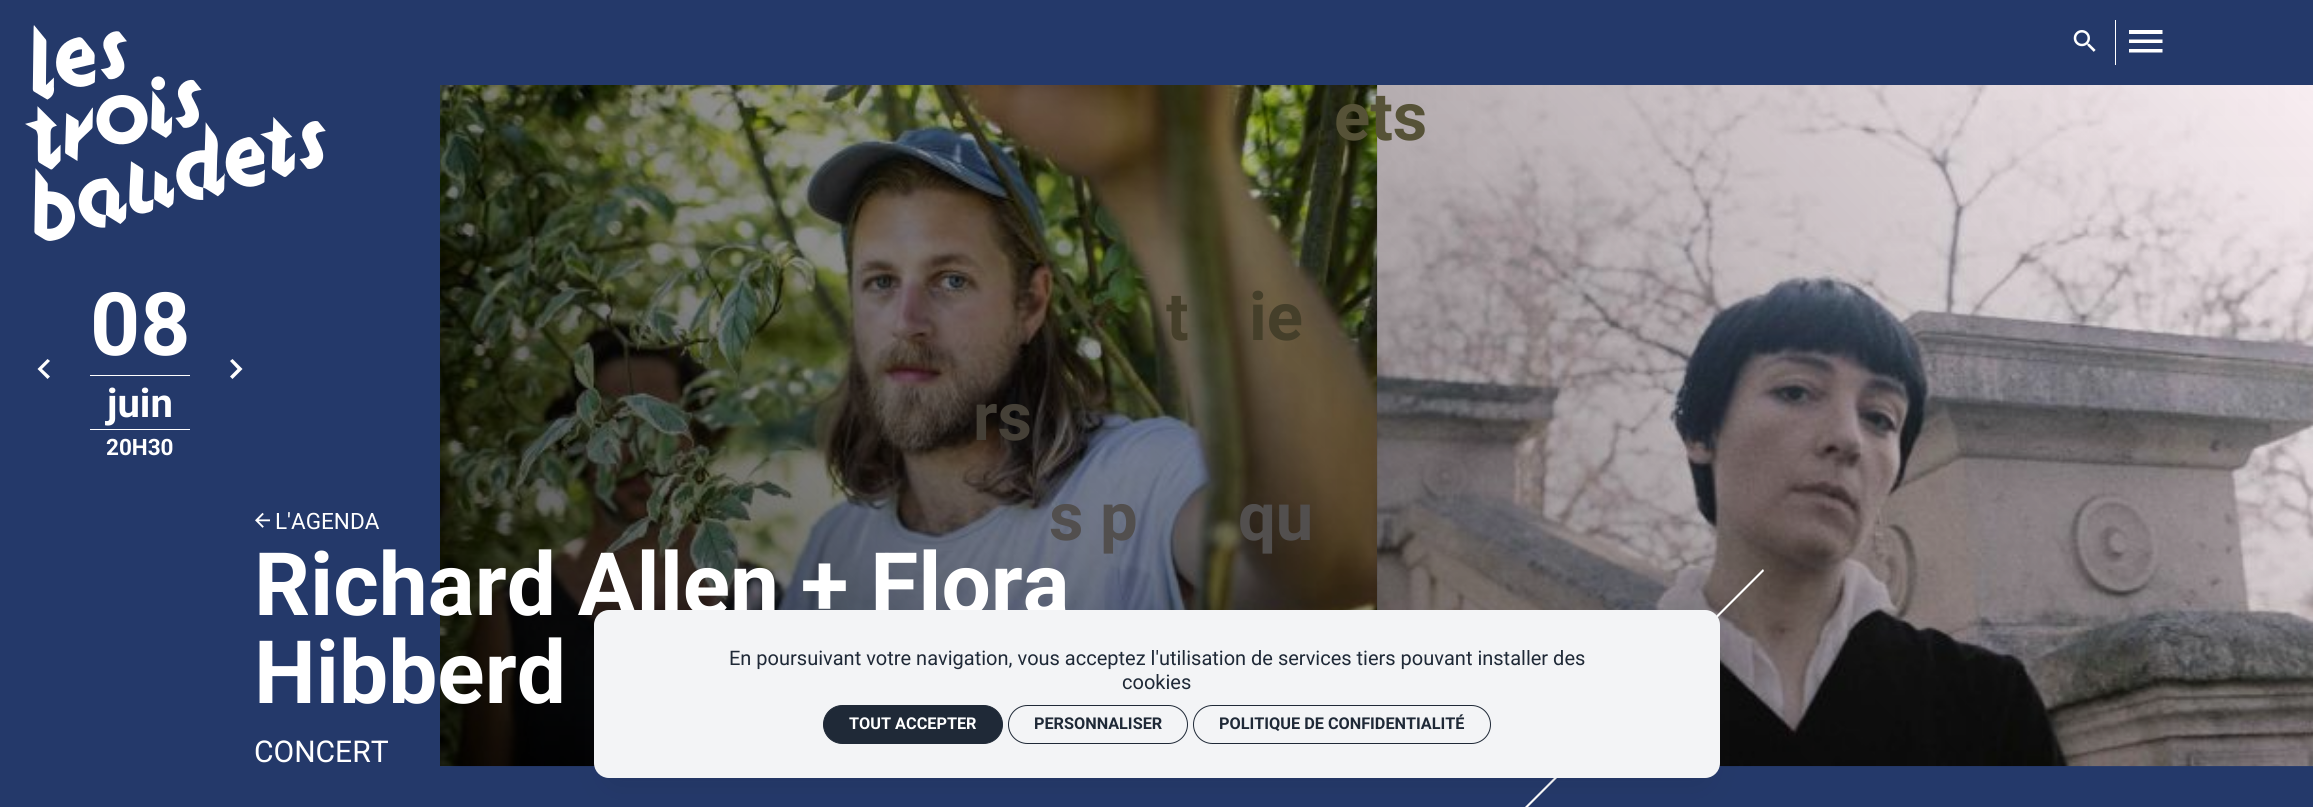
import math
import cairo



def rounded_rect(context, x, y, w, h, r):
    context.new_sub_path()
    for i, (u, v) in enumerate([(x + w - r, y + h - r), (x + r, y + h - r), (x + r, y + r), (x + w - r, y + r)]):
        context.arc(u, v, r, i * math.pi / 2, (i + 1) * math.pi / 2)
    context.close_path()


def draw_shadow(context, x, y, w, h, r, blur, alpha):
    context.push_group_with_content(cairo.Content.ALPHA)
    context.set_operator(cairo.Operator.SOURCE)
    for i in range(15, -16, -2):
        e = blur * i / 6
        if min(w, h) + 2 * e > 0:
            context.set_source_rgba(0, 0, 0, alpha * math.erfc((i - 1) / 8.5) / 2)
            rounded_rect(context, x - e, y - e, w + 2 * e, h + 2 * e, max(0, min(r + e + blur * .6, min(w, h) / 2 + e)))
            context.fill()
    context.mask(context.pop_group())


def draw_image(context, path, x, y, w, h):
    context.save()
    context.set_source_surface(cairo.ImageSurface.create_from_png(path), x, y)
    context.rectangle(x, y, w, h)
    context.fill()
    context.restore()


def draw(context):
    context.set_source_rgb(36 / 255, 57 / 255, 106 / 255)
    context.paint()
    draw_image(context, "images/1.png", 25, 25, 301, 216)
    context.set_source_rgb(1, 1, 1)
    context.rectangle(2115, 20, 1, 45)
    context.fill()
    draw_image(context, "images/2.png", 2073, 30, 23, 22)
    context.new_path()
    context.move_to(2129, 52.5)
    context.line_to(2129, 49)
    context.line_to(2162.5, 49)
    context.line_to(2162.5, 52.5)
    context.close_path()
    context.move_to(2129, 43)
    context.line_to(2129, 39.5)
    context.line_to(2162.5, 39.5)
    context.line_to(2162.5, 43)
    context.close_path()
    context.move_to(2129, 30)
    context.line_to(2162.5, 30)
    context.line_to(2162.5, 34)
    context.line_to(2129, 34)
    context.close_path()
    context.fill()
    context.new_path()
    context.move_to(50, 361)
    context.line_to(42, 369)
    context.line_to(50, 376.5)
    context.line_to(47.5, 379)
    context.line_to(37.5, 369)
    context.line_to(47.5, 359)
    context.close_path()
    context.fill()
    context.rectangle(90, 375, 100, 1)
    context.fill()
    context.rectangle(90, 429, 100, 1)
    context.fill()
    context.new_path()
    context.move_to(232.5, 359)
    context.line_to(242.5, 369)
    context.line_to(232.5, 379)
    context.line_to(230, 376.5)
    context.line_to(237.5, 369)
    context.line_to(230, 361)
    context.close_path()
    context.fill()
    draw_image(context, "images/3.png", 440, 85, 938, 682)
    draw_image(context, "images/4.png", 1377, 85, 936, 682)
    gradient = cairo.LinearGradient(738, 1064, 2016, -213)
    gradient.add_color_stop_rgba(0, 0, 0, 0, 0.7)
    gradient.add_color_stop_rgba(1, 0, 0, 0, 0)
    context.set_source(gradient)
    context.rectangle(440, 85, 1873, 681)
    context.fill()
    draw_image(context, "images/5.png", 255, 512, 15, 16)
    context.set_source_rgb(1, 1, 1)
    context.new_path()
    context.move_to(1445, 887)
    context.line_to(1763, 569)
    context.line_to(1764, 571)
    context.line_to(1446, 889)
    context.close_path()
    context.fill()
    context.set_source_rgb(34 / 255, 34 / 255, 48 / 255)
    draw_shadow(context, 613, 648, 1088, 130, 0, 19, 0.2)
    context.select_font_face("Roboto", cairo.FontSlant.NORMAL, cairo.FontWeight.BOLD)
    context.set_font_size(87.5)
    context.set_source_rgb(1, 1, 1)
    context.move_to(90, 355)
    context.show_text("08")
    context.set_font_size(40)
    context.move_to(107, 417)
    context.show_text("juin")
    context.set_font_size(22.5)
    context.move_to(106, 455)
    context.show_text("20H30")
    context.select_font_face("Roboto")
    context.move_to(275, 529)
    context.show_text("L'AGENDA")
    context.select_font_face("Roboto", cairo.FontSlant.NORMAL, cairo.FontWeight.BOLD)
    context.set_font_size(87.5)
    context.move_to(254, 615)
    context.show_text("Richard Allen + Flora")
    context.move_to(254, 703)
    context.show_text("Hibberd")
    context.select_font_face("Roboto")
    context.set_font_size(30)
    context.move_to(254, 762)
    context.show_text("CONCERT")
    context.select_font_face("Roboto", cairo.FontSlant.NORMAL, cairo.FontWeight.BOLD)
    context.set_font_size(67)
    context.set_source_rgb(86 / 255, 82 / 255, 55 / 255)
    context.move_to(1334, 140)
    context.show_text("ets")
    context.set_source_rgb(69 / 255, 63 / 255, 42 / 255)
    context.move_to(1166, 340)
    context.show_text("t")
    context.move_to(1249, 340)
    context.show_text("ie")
    context.set_source_rgb(69 / 255, 64 / 255, 55 / 255)
    context.move_to(973, 440)
    context.show_text("rs")
    context.set_source_rgb(82 / 255, 79 / 255, 78 / 255)
    context.move_to(1049, 540)
    context.show_text("s p")
    context.move_to(1238, 540)
    context.show_text("qu")
    context.set_source_rgb(243 / 255, 244 / 255, 246 / 255)
    rounded_rect(context, 594, 610, 1126, 168, 15)
    context.fill()
    context.select_font_face("Roboto")
    context.set_font_size(20)
    context.set_source_rgb(31 / 255, 41 / 255, 55 / 255)
    context.move_to(729, 665)
    context.show_text("En poursuivant votre navigation, vous acceptez l'utilisation de services tiers pouvant installer des")
    context.move_to(1122, 689)
    context.show_text("cookies")
    rounded_rect(context, 823.5, 705.5, 179, 38, 19)
    context.fill_preserve()
    context.set_line_width(1)
    context.stroke()
    context.select_font_face("Roboto", cairo.FontSlant.NORMAL, cairo.FontWeight.BOLD)
    context.set_font_size(16.25)
    context.set_source_rgb(1, 1, 1)
    context.move_to(849, 729)
    context.show_text("TOUT ACCEPTER")
    rounded_rect(context, 1008.5, 705.5, 179, 38, 19)
    context.set_source_rgb(31 / 255, 41 / 255, 55 / 255)
    context.stroke()
    context.move_to(1034, 729)
    context.show_text("PERSONNALISER")
    rounded_rect(context, 1193.5, 705.5, 297, 38, 19)
    context.stroke()
    context.move_to(1219, 729)
    context.show_text("POLITIQUE DE CONFIDENTIALITÉ")


surface = cairo.ImageSurface(cairo.Format.RGB24, 2313, 807)
context = cairo.Context(surface)
options = cairo.FontOptions()
options.set_hint_metrics(cairo.HintMetrics.OFF)
options.set_hint_style(cairo.HintStyle.NONE)
context.set_font_options(options)
context.set_miter_limit(4)
draw(context)
surface.write_to_png("out.png")
